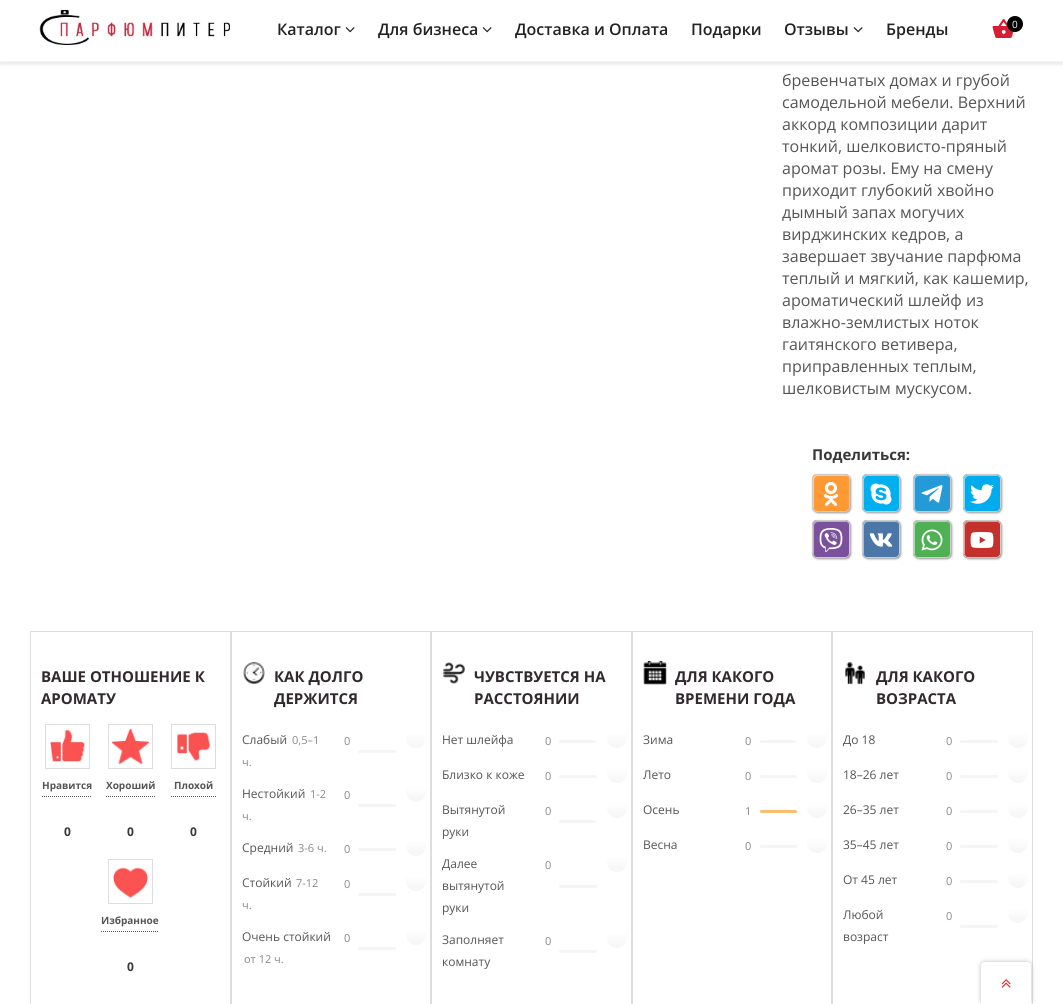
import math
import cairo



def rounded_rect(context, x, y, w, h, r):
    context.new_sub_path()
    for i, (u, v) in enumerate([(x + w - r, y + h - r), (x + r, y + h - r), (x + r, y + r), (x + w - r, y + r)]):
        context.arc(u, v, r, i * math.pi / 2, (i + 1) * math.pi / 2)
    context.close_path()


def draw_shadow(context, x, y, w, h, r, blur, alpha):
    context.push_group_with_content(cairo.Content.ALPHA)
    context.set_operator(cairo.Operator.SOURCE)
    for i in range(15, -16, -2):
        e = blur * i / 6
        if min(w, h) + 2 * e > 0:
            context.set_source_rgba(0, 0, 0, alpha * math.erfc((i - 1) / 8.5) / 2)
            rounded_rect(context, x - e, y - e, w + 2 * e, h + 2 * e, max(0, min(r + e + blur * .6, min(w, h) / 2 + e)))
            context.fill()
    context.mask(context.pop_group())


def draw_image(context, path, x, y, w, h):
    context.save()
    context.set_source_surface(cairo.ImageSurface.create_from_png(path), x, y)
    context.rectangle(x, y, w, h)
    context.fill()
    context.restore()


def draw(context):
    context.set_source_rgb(1, 1, 1)
    context.paint()
    context.set_source_rgb(0, 0, 0)
    draw_shadow(context, 0, 0, 1063, 63, 0, 2.5, 0.14)
    context.set_source_rgb(1, 1, 1)
    context.rectangle(0, 0, 1063, 61)
    context.fill()
    context.set_source_rgb(246 / 255, 246 / 255, 246 / 255)
    context.rectangle(0, 61, 1063, 1)
    context.fill()
    draw_image(context, "images/1.png", 39, 9, 191, 36)
    draw_image(context, "images/2.png", 345, 27, 10, 6)
    draw_image(context, "images/2.png", 482, 27, 10, 6)
    draw_image(context, "images/2.png", 853, 27, 10, 6)
    draw_image(context, "images/3.png", 992, 19, 22, 19)
    context.set_source_rgb(0, 0, 0)
    context.arc(1015, 24, 8, 0, 2 * math.pi)
    context.fill()
    context.set_source_rgb(0, 0, 0)
    draw_shadow(context, 813, 475, 38, 38, 5, 1, 0.4)
    context.set_source_rgb(1, 153 / 255, 51 / 255)
    rounded_rect(context, 812, 474, 38, 38, 5)
    context.fill()
    context.set_source_rgb(1, 204 / 255, 153 / 255)
    context.new_path()
    context.move_to(818, 476)
    context.line_to(846, 476)
    context.curve_to(847, 476, 847.5, 476.5, 848.5, 477)
    context.curve_to(848, 476, 846.5, 475, 845, 475)
    context.line_to(817, 475)
    context.curve_to(815, 475, 813, 477, 813, 479)
    context.line_to(813, 507)
    context.curve_to(813, 508.5, 814, 510, 815, 510.5)
    context.curve_to(814.5, 509.5, 814, 509, 814, 508)
    context.line_to(814, 480)
    context.curve_to(814, 478, 816, 476, 818, 476)
    context.close_path()
    context.fill()
    rounded_rect(context, 812.5, 474.5, 37, 37, 4.5)
    context.set_source_rgb(204 / 255, 204 / 255, 204 / 255)
    context.set_line_width(1)
    context.stroke()
    draw_image(context, "images/4.png", 823, 482, 16, 24)
    context.set_source_rgb(0, 0, 0)
    draw_shadow(context, 863, 475, 38, 38, 5, 1, 0.4)
    context.set_source_rgb(0, 175 / 255, 240 / 255)
    rounded_rect(context, 862, 474, 38, 38, 5)
    context.fill()
    context.set_source_rgb(128 / 255, 215 / 255, 248 / 255)
    context.new_path()
    context.move_to(868, 476)
    context.line_to(896, 476)
    context.curve_to(897, 476, 897.5, 476.5, 898.5, 477)
    context.curve_to(898, 476, 896.5, 475, 895, 475)
    context.line_to(867, 475)
    context.curve_to(865, 475, 863, 477, 863, 479)
    context.line_to(863, 507)
    context.curve_to(863, 508.5, 864, 510, 865, 510.5)
    context.curve_to(864.5, 509.5, 864, 509, 864, 508)
    context.line_to(864, 480)
    context.curve_to(864, 478, 866, 476, 868, 476)
    context.close_path()
    context.fill()
    rounded_rect(context, 862.5, 474.5, 37, 37, 4.5)
    context.set_source_rgb(204 / 255, 204 / 255, 204 / 255)
    context.stroke()
    draw_image(context, "images/5.png", 870, 483, 22, 22)
    context.set_source_rgb(0, 0, 0)
    draw_shadow(context, 914, 475, 38, 38, 5, 1, 0.4)
    context.set_source_rgb(36 / 255, 155 / 255, 215 / 255)
    rounded_rect(context, 913, 474, 38, 38, 5)
    context.fill()
    context.set_source_rgb(146 / 255, 205 / 255, 235 / 255)
    context.new_path()
    context.move_to(919, 476)
    context.line_to(947, 476)
    context.curve_to(948, 476, 948.5, 476.5, 949.5, 477)
    context.curve_to(949, 476, 947.5, 475, 946, 475)
    context.line_to(918, 475)
    context.curve_to(916, 475, 914, 477, 914, 479)
    context.line_to(914, 507)
    context.curve_to(914, 508.5, 915, 510, 916, 510.5)
    context.curve_to(915.5, 509.5, 915, 509, 915, 508)
    context.line_to(915, 480)
    context.curve_to(915, 478, 917, 476, 919, 476)
    context.close_path()
    context.fill()
    rounded_rect(context, 913.5, 474.5, 37, 37, 4.5)
    context.set_source_rgb(204 / 255, 204 / 255, 204 / 255)
    context.stroke()
    draw_image(context, "images/6.png", 921, 485, 22, 18)
    context.set_source_rgb(0, 0, 0)
    draw_shadow(context, 964, 475, 38, 38, 5, 1, 0.4)
    context.set_source_rgb(0, 172 / 255, 238 / 255)
    rounded_rect(context, 963, 474, 38, 38, 5)
    context.fill()
    context.set_source_rgb(128 / 255, 214 / 255, 247 / 255)
    context.new_path()
    context.move_to(969, 476)
    context.line_to(997, 476)
    context.curve_to(998, 476, 998.5, 476.5, 999.5, 477)
    context.curve_to(999, 476, 997.5, 475, 996, 475)
    context.line_to(968, 475)
    context.curve_to(966, 475, 964, 477, 964, 479)
    context.line_to(964, 507)
    context.curve_to(964, 508.5, 965, 510, 966, 510.5)
    context.curve_to(965.5, 509.5, 965, 509, 965, 508)
    context.line_to(965, 480)
    context.curve_to(965, 478, 967, 476, 969, 476)
    context.close_path()
    context.fill()
    rounded_rect(context, 963.5, 474.5, 37, 37, 4.5)
    context.set_source_rgb(204 / 255, 204 / 255, 204 / 255)
    context.stroke()
    draw_image(context, "images/7.png", 970, 484, 24, 20)
    context.set_source_rgb(0, 0, 0)
    draw_shadow(context, 813, 521, 38, 38, 5, 1, 0.4)
    context.set_source_rgb(123 / 255, 81 / 255, 157 / 255)
    rounded_rect(context, 812, 520, 38, 38, 5)
    context.fill()
    context.set_source_rgb(189 / 255, 168 / 255, 206 / 255)
    context.new_path()
    context.move_to(818, 522)
    context.line_to(846, 522)
    context.curve_to(847, 522, 847.5, 522.5, 848.5, 523)
    context.curve_to(848, 522, 846.5, 521, 845, 521)
    context.line_to(817, 521)
    context.curve_to(815, 521, 813, 523, 813, 525)
    context.line_to(813, 553)
    context.curve_to(813, 554.5, 814, 556, 815, 556.5)
    context.curve_to(814.5, 555.5, 814, 555, 814, 554)
    context.line_to(814, 526)
    context.curve_to(814, 524, 816, 522, 818, 522)
    context.close_path()
    context.fill()
    rounded_rect(context, 812.5, 520.5, 37, 37, 4.5)
    context.set_source_rgb(204 / 255, 204 / 255, 204 / 255)
    context.stroke()
    draw_image(context, "images/8.png", 819, 528, 24, 24)
    context.set_source_rgb(0, 0, 0)
    draw_shadow(context, 863, 521, 38, 38, 5, 1, 0.4)
    context.set_source_rgb(74 / 255, 118 / 255, 168 / 255)
    rounded_rect(context, 862, 520, 38, 38, 5)
    context.fill()
    context.set_source_rgb(165 / 255, 187 / 255, 212 / 255)
    context.new_path()
    context.move_to(868, 522)
    context.line_to(896, 522)
    context.curve_to(897, 522, 897.5, 522.5, 898.5, 523)
    context.curve_to(898, 522, 896.5, 521, 895, 521)
    context.line_to(867, 521)
    context.curve_to(865, 521, 863, 523, 863, 525)
    context.line_to(863, 553)
    context.curve_to(863, 554.5, 864, 556, 865, 556.5)
    context.curve_to(864.5, 555.5, 864, 555, 864, 554)
    context.line_to(864, 526)
    context.curve_to(864, 524, 866, 522, 868, 522)
    context.close_path()
    context.fill()
    rounded_rect(context, 862.5, 520.5, 37, 37, 4.5)
    context.set_source_rgb(204 / 255, 204 / 255, 204 / 255)
    context.stroke()
    draw_image(context, "images/9.png", 869, 533, 24, 14)
    context.set_source_rgb(0, 0, 0)
    draw_shadow(context, 914, 521, 38, 38, 5, 1, 0.4)
    context.set_source_rgb(80 / 255, 177 / 255, 84 / 255)
    rounded_rect(context, 913, 520, 38, 38, 5)
    context.fill()
    context.set_source_rgb(168 / 255, 216 / 255, 170 / 255)
    context.new_path()
    context.move_to(919, 522)
    context.line_to(947, 522)
    context.curve_to(948, 522, 948.5, 522.5, 949.5, 523)
    context.curve_to(949, 522, 947.5, 521, 946, 521)
    context.line_to(918, 521)
    context.curve_to(916, 521, 914, 523, 914, 525)
    context.line_to(914, 553)
    context.curve_to(914, 554.5, 915, 556, 916, 556.5)
    context.curve_to(915.5, 555.5, 915, 555, 915, 554)
    context.line_to(915, 526)
    context.curve_to(915, 524, 917, 522, 919, 522)
    context.close_path()
    context.fill()
    rounded_rect(context, 913.5, 520.5, 37, 37, 4.5)
    context.set_source_rgb(204 / 255, 204 / 255, 204 / 255)
    context.stroke()
    draw_image(context, "images/10.png", 921, 529, 22, 22)
    context.set_source_rgb(0, 0, 0)
    draw_shadow(context, 964, 521, 38, 38, 5, 1, 0.4)
    context.set_source_rgb(196 / 255, 48 / 255, 43 / 255)
    rounded_rect(context, 963, 520, 38, 38, 5)
    context.fill()
    context.set_source_rgb(226 / 255, 152 / 255, 149 / 255)
    context.new_path()
    context.move_to(969, 522)
    context.line_to(997, 522)
    context.curve_to(998, 522, 998.5, 522.5, 999.5, 523)
    context.curve_to(999, 522, 997.5, 521, 996, 521)
    context.line_to(968, 521)
    context.curve_to(966, 521, 964, 523, 964, 525)
    context.line_to(964, 553)
    context.curve_to(964, 554.5, 965, 556, 966, 556.5)
    context.curve_to(965.5, 555.5, 965, 555, 965, 554)
    context.line_to(965, 526)
    context.curve_to(965, 524, 967, 522, 969, 522)
    context.close_path()
    context.fill()
    rounded_rect(context, 963.5, 520.5, 37, 37, 4.5)
    context.set_source_rgb(204 / 255, 204 / 255, 204 / 255)
    context.stroke()
    draw_image(context, "images/11.png", 970, 532, 24, 16)
    context.rectangle(30.5, 631.5, 200, 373)
    context.set_source_rgb(221 / 255, 221 / 255, 221 / 255)
    context.stroke()
    context.rectangle(45.5, 724.5, 44, 44)
    context.stroke()
    draw_image(context, "images/12.png", 50, 729, 35, 33)
    context.new_path()
    context.move_to(42, 796.5)
    context.line_to(92, 796.5)
    context.set_source_rgb(85 / 255, 85 / 255, 85 / 255)
    context.set_dash([1, 1])
    context.stroke()
    context.rectangle(108.5, 724.5, 44, 44)
    context.set_source_rgb(221 / 255, 221 / 255, 221 / 255)
    context.set_dash([])
    context.stroke()
    draw_image(context, "images/13.png", 112, 728, 37, 37)
    context.new_path()
    context.move_to(106, 796.5)
    context.line_to(155, 796.5)
    context.set_source_rgb(85 / 255, 85 / 255, 85 / 255)
    context.set_dash([1, 1])
    context.stroke()
    context.rectangle(171.5, 724.5, 44, 44)
    context.set_source_rgb(221 / 255, 221 / 255, 221 / 255)
    context.set_dash([])
    context.stroke()
    draw_image(context, "images/14.png", 176, 732, 35, 29)
    context.new_path()
    context.move_to(171, 796.5)
    context.line_to(216, 796.5)
    context.set_source_rgb(85 / 255, 85 / 255, 85 / 255)
    context.set_dash([1, 1])
    context.stroke()
    context.rectangle(108.5, 859.5, 44, 44)
    context.set_source_rgb(221 / 255, 221 / 255, 221 / 255)
    context.set_dash([])
    context.stroke()
    draw_image(context, "images/15.png", 113, 867, 35, 32)
    context.new_path()
    context.move_to(101, 931.5)
    context.line_to(159, 931.5)
    context.set_source_rgb(85 / 255, 85 / 255, 85 / 255)
    context.set_dash([1, 1])
    context.stroke()
    context.rectangle(231.5, 631.5, 199, 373)
    context.set_source_rgb(221 / 255, 221 / 255, 221 / 255)
    context.set_dash([])
    context.stroke()
    draw_image(context, "images/16.png", 243, 662, 22, 22)
    gradient = cairo.LinearGradient(416, 748, 416, 728)
    gradient.add_color_stop_rgba(0, 245 / 255, 245 / 255, 245 / 255, 1)
    gradient.add_color_stop_rgba(0.8, 1, 1, 1, 1)
    gradient.add_color_stop_rgba(1, 1, 1, 1, 1)
    context.set_source(gradient)
    context.arc(416, 738, 10, 0, 2 * math.pi)
    context.fill()
    context.set_source_rgb(245 / 255, 245 / 255, 245 / 255)
    rounded_rect(context, 358, 750, 38, 3, 1.5)
    context.fill()
    gradient = cairo.LinearGradient(416, 802, 416, 782)
    gradient.add_color_stop_rgba(0, 245 / 255, 245 / 255, 245 / 255, 1)
    gradient.add_color_stop_rgba(0.8, 1, 1, 1, 1)
    gradient.add_color_stop_rgba(1, 1, 1, 1, 1)
    context.set_source(gradient)
    context.arc(416, 792, 10, 0, 2 * math.pi)
    context.fill()
    context.set_source_rgb(245 / 255, 245 / 255, 245 / 255)
    rounded_rect(context, 358, 804, 38, 3, 1.5)
    context.fill()
    rounded_rect(context, 358, 848, 38, 3, 1.5)
    context.fill()
    gradient = cairo.LinearGradient(416, 856, 416, 836)
    gradient.add_color_stop_rgba(0, 245 / 255, 245 / 255, 245 / 255, 1)
    gradient.add_color_stop_rgba(0.8, 1, 1, 1, 1)
    gradient.add_color_stop_rgba(1, 1, 1, 1, 1)
    context.set_source(gradient)
    context.arc(416, 846, 10, 0, 2 * math.pi)
    context.fill()
    gradient = cairo.LinearGradient(416, 891, 416, 871)
    gradient.add_color_stop_rgba(0, 245 / 255, 245 / 255, 245 / 255, 1)
    gradient.add_color_stop_rgba(0.8, 1, 1, 1, 1)
    gradient.add_color_stop_rgba(1, 1, 1, 1, 1)
    context.set_source(gradient)
    context.arc(416, 881, 10, 0, 2 * math.pi)
    context.fill()
    context.set_source_rgb(245 / 255, 245 / 255, 245 / 255)
    rounded_rect(context, 358, 893, 38, 3, 1.5)
    context.fill()
    gradient = cairo.LinearGradient(416, 945, 416, 925)
    gradient.add_color_stop_rgba(0, 245 / 255, 245 / 255, 245 / 255, 1)
    gradient.add_color_stop_rgba(0.8, 1, 1, 1, 1)
    gradient.add_color_stop_rgba(1, 1, 1, 1, 1)
    context.set_source(gradient)
    context.arc(416, 935, 10, 0, 2 * math.pi)
    context.fill()
    context.set_source_rgb(245 / 255, 245 / 255, 245 / 255)
    rounded_rect(context, 358, 947, 38, 3, 1.5)
    context.fill()
    context.rectangle(431.5, 631.5, 200, 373)
    context.set_source_rgb(221 / 255, 221 / 255, 221 / 255)
    context.stroke()
    draw_image(context, "images/17.png", 443, 662, 22, 22)
    context.set_source_rgb(245 / 255, 245 / 255, 245 / 255)
    rounded_rect(context, 559, 740, 38, 3, 1.5)
    context.fill()
    gradient = cairo.LinearGradient(617, 748, 617, 728)
    gradient.add_color_stop_rgba(0, 245 / 255, 245 / 255, 245 / 255, 1)
    gradient.add_color_stop_rgba(0.8, 1, 1, 1, 1)
    gradient.add_color_stop_rgba(1, 1, 1, 1, 1)
    context.set_source(gradient)
    context.arc(617, 738, 10, 0, 2 * math.pi)
    context.fill()
    context.set_source_rgb(245 / 255, 245 / 255, 245 / 255)
    rounded_rect(context, 559, 775, 38, 3, 1.5)
    context.fill()
    gradient = cairo.LinearGradient(617, 783, 617, 763)
    gradient.add_color_stop_rgba(0, 245 / 255, 245 / 255, 245 / 255, 1)
    gradient.add_color_stop_rgba(0.8, 1, 1, 1, 1)
    gradient.add_color_stop_rgba(1, 1, 1, 1, 1)
    context.set_source(gradient)
    context.arc(617, 773, 10, 0, 2 * math.pi)
    context.fill()
    gradient = cairo.LinearGradient(617, 818, 617, 798)
    gradient.add_color_stop_rgba(0, 245 / 255, 245 / 255, 245 / 255, 1)
    gradient.add_color_stop_rgba(0.8, 1, 1, 1, 1)
    gradient.add_color_stop_rgba(1, 1, 1, 1, 1)
    context.set_source(gradient)
    context.arc(617, 808, 10, 0, 2 * math.pi)
    context.fill()
    context.set_source_rgb(245 / 255, 245 / 255, 245 / 255)
    rounded_rect(context, 559, 820, 38, 3, 1.5)
    context.fill()
    gradient = cairo.LinearGradient(617, 872, 617, 852)
    gradient.add_color_stop_rgba(0, 245 / 255, 245 / 255, 245 / 255, 1)
    gradient.add_color_stop_rgba(0.8, 1, 1, 1, 1)
    gradient.add_color_stop_rgba(1, 1, 1, 1, 1)
    context.set_source(gradient)
    context.arc(617, 862, 10, 0, 2 * math.pi)
    context.fill()
    context.set_source_rgb(245 / 255, 245 / 255, 245 / 255)
    rounded_rect(context, 559, 885, 38, 3, 1.5)
    context.fill()
    gradient = cairo.LinearGradient(617, 948, 617, 928)
    gradient.add_color_stop_rgba(0, 245 / 255, 245 / 255, 245 / 255, 1)
    gradient.add_color_stop_rgba(0.8, 1, 1, 1, 1)
    gradient.add_color_stop_rgba(1, 1, 1, 1, 1)
    context.set_source(gradient)
    context.arc(617, 938, 10, 0, 2 * math.pi)
    context.fill()
    context.set_source_rgb(245 / 255, 245 / 255, 245 / 255)
    rounded_rect(context, 559, 950, 38, 3, 1.5)
    context.fill()
    context.rectangle(632.5, 631.5, 199, 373)
    context.set_source_rgb(221 / 255, 221 / 255, 221 / 255)
    context.stroke()
    draw_image(context, "images/18.png", 643, 661, 24, 24)
    context.set_source_rgb(245 / 255, 245 / 255, 245 / 255)
    rounded_rect(context, 760, 740, 37, 3, 1.5)
    context.fill()
    gradient = cairo.LinearGradient(817, 748, 817, 728)
    gradient.add_color_stop_rgba(0, 245 / 255, 245 / 255, 245 / 255, 1)
    gradient.add_color_stop_rgba(0.8, 1, 1, 1, 1)
    gradient.add_color_stop_rgba(1, 1, 1, 1, 1)
    context.set_source(gradient)
    context.arc(817, 738, 10, 0, 2 * math.pi)
    context.fill()
    context.set_source_rgb(245 / 255, 245 / 255, 245 / 255)
    rounded_rect(context, 760, 775, 37, 3, 1.5)
    context.fill()
    gradient = cairo.LinearGradient(817, 783, 817, 763)
    gradient.add_color_stop_rgba(0, 245 / 255, 245 / 255, 245 / 255, 1)
    gradient.add_color_stop_rgba(0.8, 1, 1, 1, 1)
    gradient.add_color_stop_rgba(1, 1, 1, 1, 1)
    context.set_source(gradient)
    context.arc(817, 773, 10, 0, 2 * math.pi)
    context.fill()
    context.set_source_rgb(249 / 255, 190 / 255, 110 / 255)
    rounded_rect(context, 760, 810, 37, 3, 1.5)
    context.fill()
    gradient = cairo.LinearGradient(817, 818, 817, 798)
    gradient.add_color_stop_rgba(0, 245 / 255, 245 / 255, 245 / 255, 1)
    gradient.add_color_stop_rgba(0.8, 1, 1, 1, 1)
    gradient.add_color_stop_rgba(1, 1, 1, 1, 1)
    context.set_source(gradient)
    context.arc(817, 808, 10, 0, 2 * math.pi)
    context.fill()
    context.set_source_rgb(245 / 255, 245 / 255, 245 / 255)
    rounded_rect(context, 760, 845, 37, 3, 1.5)
    context.fill()
    gradient = cairo.LinearGradient(817, 853, 817, 833)
    gradient.add_color_stop_rgba(0, 245 / 255, 245 / 255, 245 / 255, 1)
    gradient.add_color_stop_rgba(0.8, 1, 1, 1, 1)
    gradient.add_color_stop_rgba(1, 1, 1, 1, 1)
    context.set_source(gradient)
    context.arc(817, 843, 10, 0, 2 * math.pi)
    context.fill()
    context.rectangle(832.5, 631.5, 200, 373)
    context.set_source_rgb(221 / 255, 221 / 255, 221 / 255)
    context.stroke()
    draw_image(context, "images/19.png", 845, 662, 20, 23)
    context.set_source_rgb(245 / 255, 245 / 255, 245 / 255)
    rounded_rect(context, 960, 740, 38, 3, 1.5)
    context.fill()
    gradient = cairo.LinearGradient(1018, 748, 1018, 728)
    gradient.add_color_stop_rgba(0, 245 / 255, 245 / 255, 245 / 255, 1)
    gradient.add_color_stop_rgba(0.8, 1, 1, 1, 1)
    gradient.add_color_stop_rgba(1, 1, 1, 1, 1)
    context.set_source(gradient)
    context.arc(1018, 738, 10, 0, 2 * math.pi)
    context.fill()
    context.set_source_rgb(245 / 255, 245 / 255, 245 / 255)
    rounded_rect(context, 960, 775, 38, 3, 1.5)
    context.fill()
    gradient = cairo.LinearGradient(1018, 783, 1018, 763)
    gradient.add_color_stop_rgba(0, 245 / 255, 245 / 255, 245 / 255, 1)
    gradient.add_color_stop_rgba(0.8, 1, 1, 1, 1)
    gradient.add_color_stop_rgba(1, 1, 1, 1, 1)
    context.set_source(gradient)
    context.arc(1018, 773, 10, 0, 2 * math.pi)
    context.fill()
    context.set_source_rgb(245 / 255, 245 / 255, 245 / 255)
    rounded_rect(context, 960, 810, 38, 3, 1.5)
    context.fill()
    gradient = cairo.LinearGradient(1018, 818, 1018, 798)
    gradient.add_color_stop_rgba(0, 245 / 255, 245 / 255, 245 / 255, 1)
    gradient.add_color_stop_rgba(0.8, 1, 1, 1, 1)
    gradient.add_color_stop_rgba(1, 1, 1, 1, 1)
    context.set_source(gradient)
    context.arc(1018, 808, 10, 0, 2 * math.pi)
    context.fill()
    context.set_source_rgb(245 / 255, 245 / 255, 245 / 255)
    rounded_rect(context, 960, 845, 38, 3, 1.5)
    context.fill()
    gradient = cairo.LinearGradient(1018, 853, 1018, 833)
    gradient.add_color_stop_rgba(0, 245 / 255, 245 / 255, 245 / 255, 1)
    gradient.add_color_stop_rgba(0.8, 1, 1, 1, 1)
    gradient.add_color_stop_rgba(1, 1, 1, 1, 1)
    context.set_source(gradient)
    context.arc(1018, 843, 10, 0, 2 * math.pi)
    context.fill()
    context.set_source_rgb(245 / 255, 245 / 255, 245 / 255)
    rounded_rect(context, 960, 880, 38, 3, 1.5)
    context.fill()
    gradient = cairo.LinearGradient(1018, 888, 1018, 868)
    gradient.add_color_stop_rgba(0, 245 / 255, 245 / 255, 245 / 255, 1)
    gradient.add_color_stop_rgba(0.8, 1, 1, 1, 1)
    gradient.add_color_stop_rgba(1, 1, 1, 1, 1)
    context.set_source(gradient)
    context.arc(1018, 878, 10, 0, 2 * math.pi)
    context.fill()
    gradient = cairo.LinearGradient(1018, 923, 1018, 903)
    gradient.add_color_stop_rgba(0, 245 / 255, 245 / 255, 245 / 255, 1)
    gradient.add_color_stop_rgba(0.8, 1, 1, 1, 1)
    gradient.add_color_stop_rgba(1, 1, 1, 1, 1)
    context.set_source(gradient)
    context.arc(1018, 913, 10, 0, 2 * math.pi)
    context.fill()
    context.set_source_rgb(245 / 255, 245 / 255, 245 / 255)
    rounded_rect(context, 960, 925, 38, 3, 1.5)
    context.fill()
    context.save()
    context.set_fill_rule(cairo.FillRule.EVEN_ODD)
    context.new_path()
    context.move_to(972, 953)
    context.line_to(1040, 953)
    context.line_to(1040, 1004)
    context.line_to(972, 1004)
    context.close_path()
    context.move_to(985, 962)
    context.line_to(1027, 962)
    context.curve_to(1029, 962, 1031, 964, 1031, 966)
    context.line_to(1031, 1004)
    context.line_to(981, 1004)
    context.line_to(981, 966)
    context.curve_to(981, 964, 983, 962, 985, 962)
    context.close_path()
    context.clip()
    context.set_source_rgb(190 / 255, 190 / 255, 190 / 255)
    draw_shadow(context, 981, 962, 50, 42, 4, 2.5, 1)
    context.restore()
    context.set_source_rgba(1, 1, 1, 0.94)
    context.new_path()
    context.move_to(985, 962)
    context.line_to(1027, 962)
    context.curve_to(1029, 962, 1031, 964, 1031, 966)
    context.line_to(1031, 1004)
    context.line_to(981, 1004)
    context.line_to(981, 966)
    context.curve_to(981, 964, 983, 962, 985, 962)
    context.close_path()
    context.fill()
    draw_image(context, "images/20.png", 1001, 979, 10, 9)
    context.select_font_face("Open Sans SemiBold")
    context.set_font_size(16)
    context.set_source_rgb(34 / 255, 34 / 255, 34 / 255)
    context.move_to(277, 35)
    context.show_text("Каталог")
    context.move_to(378, 35)
    context.show_text("Для бизнеса")
    context.move_to(515, 35)
    context.show_text("Доставка и Оплата")
    context.move_to(691, 35)
    context.show_text("Подарки")
    context.move_to(784, 35)
    context.show_text("Отзывы")
    context.move_to(886, 35)
    context.show_text("Бренды")
    context.select_font_face("Open Sans")
    context.set_font_size(10)
    context.set_source_rgb(1, 1, 1)
    context.move_to(1012, 28)
    context.show_text("0")
    context.set_font_size(16)
    context.set_source_rgb(85 / 255, 85 / 255, 85 / 255)
    context.move_to(782, 86)
    context.show_text("бревенчатых домах и грубой")
    context.move_to(782, 108)
    context.show_text("самодельной мебели. Верхний")
    context.move_to(782, 130)
    context.show_text("аккорд композиции дарит")
    context.move_to(782, 152)
    context.show_text("тонкий, шелковисто-пряный")
    context.move_to(782, 174)
    context.show_text("аромат розы. Ему на смену")
    context.move_to(782, 196)
    context.show_text("приходит глубокий хвойно")
    context.move_to(782, 218)
    context.show_text("дымный запах могучих")
    context.move_to(782, 240)
    context.show_text("вирджинских кедров, а")
    context.move_to(782, 262)
    context.show_text("завершает звучание парфюма")
    context.move_to(782, 284)
    context.show_text("теплый и мягкий, как кашемир,")
    context.move_to(782, 306)
    context.show_text("ароматический шлейф из")
    context.move_to(782, 328)
    context.show_text("влажно-землистых ноток")
    context.move_to(782, 350)
    context.show_text("гаитянского ветивера,")
    context.move_to(782, 372)
    context.show_text("приправленных теплым,")
    context.move_to(782, 394)
    context.show_text("шелковистым мускусом.")
    context.select_font_face("Open Sans", cairo.FontSlant.NORMAL, cairo.FontWeight.BOLD)
    context.set_font_size(15)
    context.set_source_rgb(56 / 255, 56 / 255, 56 / 255)
    context.move_to(812, 460)
    context.show_text("Поделиться:")
    context.set_source_rgb(50 / 255, 41 / 255, 47 / 255)
    context.move_to(41, 682)
    context.show_text("ВАШЕ ОТНОШЕНИЕ К")
    context.move_to(41, 704)
    context.show_text("АРОМАТУ")
    context.set_font_size(10)
    context.set_source_rgb(85 / 255, 85 / 255, 85 / 255)
    context.move_to(42, 789)
    context.show_text("Нравится")
    context.set_font_size(12)
    context.set_source_rgb(56 / 255, 56 / 255, 56 / 255)
    context.move_to(64, 836)
    context.show_text("0")
    context.set_font_size(10)
    context.set_source_rgb(85 / 255, 85 / 255, 85 / 255)
    context.move_to(106, 789)
    context.show_text("Хороший")
    context.set_font_size(12)
    context.set_source_rgb(56 / 255, 56 / 255, 56 / 255)
    context.move_to(127, 836)
    context.show_text("0")
    context.set_font_size(10)
    context.set_source_rgb(85 / 255, 85 / 255, 85 / 255)
    context.move_to(174, 789)
    context.show_text("Плохой")
    context.set_font_size(12)
    context.set_source_rgb(56 / 255, 56 / 255, 56 / 255)
    context.move_to(190, 836)
    context.show_text("0")
    context.set_font_size(10)
    context.set_source_rgb(85 / 255, 85 / 255, 85 / 255)
    context.move_to(101, 924)
    context.show_text("Избранное")
    context.set_font_size(12)
    context.set_source_rgb(56 / 255, 56 / 255, 56 / 255)
    context.move_to(127, 971)
    context.show_text("0")
    context.set_font_size(15)
    context.set_source_rgb(50 / 255, 41 / 255, 47 / 255)
    context.move_to(274, 682)
    context.show_text("КАК ДОЛГО")
    context.move_to(274, 704)
    context.show_text("ДЕРЖИТСЯ")
    context.select_font_face("Open Sans")
    context.set_font_size(12)
    context.set_source_rgb(85 / 255, 85 / 255, 85 / 255)
    context.move_to(242, 744)
    context.show_text("Слабый")
    context.set_font_size(11)
    context.set_source_rgb(136 / 255, 136 / 255, 136 / 255)
    context.move_to(292, 744)
    context.show_text("0,5–1")
    context.move_to(242, 766)
    context.show_text("ч.")
    context.move_to(344, 745)
    context.show_text("0")
    context.set_font_size(12)
    context.set_source_rgb(85 / 255, 85 / 255, 85 / 255)
    context.move_to(242, 798)
    context.show_text("Нестойкий")
    context.set_font_size(11)
    context.set_source_rgb(136 / 255, 136 / 255, 136 / 255)
    context.move_to(310, 798)
    context.show_text("1-2")
    context.move_to(242, 820)
    context.show_text("ч.")
    context.move_to(344, 799)
    context.show_text("0")
    context.set_font_size(12)
    context.set_source_rgb(85 / 255, 85 / 255, 85 / 255)
    context.move_to(242, 852)
    context.show_text("Средний")
    context.set_font_size(11)
    context.set_source_rgb(136 / 255, 136 / 255, 136 / 255)
    context.move_to(298, 852)
    context.show_text("3-6 ч.")
    context.move_to(344, 853)
    context.show_text("0")
    context.set_font_size(12)
    context.set_source_rgb(85 / 255, 85 / 255, 85 / 255)
    context.move_to(242, 887)
    context.show_text("Стойкий")
    context.set_font_size(11)
    context.set_source_rgb(136 / 255, 136 / 255, 136 / 255)
    context.move_to(296, 887)
    context.show_text("7-12")
    context.move_to(242, 909)
    context.show_text("ч.")
    context.move_to(344, 888)
    context.show_text("0")
    context.set_font_size(12)
    context.set_source_rgb(85 / 255, 85 / 255, 85 / 255)
    context.move_to(242, 941)
    context.show_text("Очень стойкий")
    context.set_font_size(11)
    context.set_source_rgb(136 / 255, 136 / 255, 136 / 255)
    context.move_to(244, 963)
    context.show_text("от 12 ч.")
    context.move_to(344, 942)
    context.show_text("0")
    context.select_font_face("Open Sans", cairo.FontSlant.NORMAL, cairo.FontWeight.BOLD)
    context.set_font_size(15)
    context.set_source_rgb(50 / 255, 41 / 255, 47 / 255)
    context.move_to(474, 682)
    context.show_text("ЧУВСТВУЕТСЯ НА")
    context.move_to(474, 704)
    context.show_text("РАССТОЯНИИ")
    context.select_font_face("Open Sans")
    context.set_font_size(12)
    context.set_source_rgb(85 / 255, 85 / 255, 85 / 255)
    context.move_to(442, 744)
    context.show_text("Нет шлейфа")
    context.set_font_size(11)
    context.set_source_rgb(136 / 255, 136 / 255, 136 / 255)
    context.move_to(545, 745)
    context.show_text("0")
    context.set_font_size(12)
    context.set_source_rgb(85 / 255, 85 / 255, 85 / 255)
    context.move_to(442, 779)
    context.show_text("Близко к коже")
    context.set_font_size(11)
    context.set_source_rgb(136 / 255, 136 / 255, 136 / 255)
    context.move_to(545, 780)
    context.show_text("0")
    context.set_font_size(12)
    context.set_source_rgb(85 / 255, 85 / 255, 85 / 255)
    context.move_to(442, 814)
    context.show_text("Вытянутой")
    context.move_to(442, 836)
    context.show_text("руки")
    context.set_font_size(11)
    context.set_source_rgb(136 / 255, 136 / 255, 136 / 255)
    context.move_to(545, 815)
    context.show_text("0")
    context.set_font_size(12)
    context.set_source_rgb(85 / 255, 85 / 255, 85 / 255)
    context.move_to(442, 868)
    context.show_text("Далее")
    context.move_to(442, 890)
    context.show_text("вытянутой")
    context.move_to(442, 912)
    context.show_text("руки")
    context.set_font_size(11)
    context.set_source_rgb(136 / 255, 136 / 255, 136 / 255)
    context.move_to(545, 869)
    context.show_text("0")
    context.set_font_size(12)
    context.set_source_rgb(85 / 255, 85 / 255, 85 / 255)
    context.move_to(442, 944)
    context.show_text("Заполняет")
    context.move_to(442, 966)
    context.show_text("комнату")
    context.set_font_size(11)
    context.set_source_rgb(136 / 255, 136 / 255, 136 / 255)
    context.move_to(545, 945)
    context.show_text("0")
    context.select_font_face("Open Sans", cairo.FontSlant.NORMAL, cairo.FontWeight.BOLD)
    context.set_font_size(15)
    context.set_source_rgb(50 / 255, 41 / 255, 47 / 255)
    context.move_to(675, 682)
    context.show_text("ДЛЯ КАКОГО")
    context.move_to(675, 704)
    context.show_text("ВРЕМЕНИ ГОДА")
    context.select_font_face("Open Sans")
    context.set_font_size(12)
    context.set_source_rgb(85 / 255, 85 / 255, 85 / 255)
    context.move_to(643, 744)
    context.show_text("Зима")
    context.set_font_size(11)
    context.set_source_rgb(136 / 255, 136 / 255, 136 / 255)
    context.move_to(745, 745)
    context.show_text("0")
    context.set_font_size(12)
    context.set_source_rgb(85 / 255, 85 / 255, 85 / 255)
    context.move_to(643, 779)
    context.show_text("Лето")
    context.set_font_size(11)
    context.set_source_rgb(136 / 255, 136 / 255, 136 / 255)
    context.move_to(745, 780)
    context.show_text("0")
    context.set_font_size(12)
    context.set_source_rgb(85 / 255, 85 / 255, 85 / 255)
    context.move_to(643, 814)
    context.show_text("Осень")
    context.set_font_size(11)
    context.set_source_rgb(136 / 255, 136 / 255, 136 / 255)
    context.move_to(745, 815)
    context.show_text("1")
    context.set_font_size(12)
    context.set_source_rgb(85 / 255, 85 / 255, 85 / 255)
    context.move_to(643, 849)
    context.show_text("Весна")
    context.set_font_size(11)
    context.set_source_rgb(136 / 255, 136 / 255, 136 / 255)
    context.move_to(745, 850)
    context.show_text("0")
    context.select_font_face("Open Sans", cairo.FontSlant.NORMAL, cairo.FontWeight.BOLD)
    context.set_font_size(15)
    context.set_source_rgb(50 / 255, 41 / 255, 47 / 255)
    context.move_to(876, 682)
    context.show_text("ДЛЯ КАКОГО")
    context.move_to(876, 704)
    context.show_text("ВОЗРАСТА")
    context.select_font_face("Open Sans")
    context.set_font_size(12)
    context.set_source_rgb(85 / 255, 85 / 255, 85 / 255)
    context.move_to(843, 744)
    context.show_text("До 18")
    context.set_font_size(11)
    context.set_source_rgb(136 / 255, 136 / 255, 136 / 255)
    context.move_to(946, 745)
    context.show_text("0")
    context.set_font_size(12)
    context.set_source_rgb(85 / 255, 85 / 255, 85 / 255)
    context.move_to(843, 779)
    context.show_text("18–26 лет")
    context.set_font_size(11)
    context.set_source_rgb(136 / 255, 136 / 255, 136 / 255)
    context.move_to(946, 780)
    context.show_text("0")
    context.set_font_size(12)
    context.set_source_rgb(85 / 255, 85 / 255, 85 / 255)
    context.move_to(843, 814)
    context.show_text("26–35 лет")
    context.set_font_size(11)
    context.set_source_rgb(136 / 255, 136 / 255, 136 / 255)
    context.move_to(946, 815)
    context.show_text("0")
    context.set_font_size(12)
    context.set_source_rgb(85 / 255, 85 / 255, 85 / 255)
    context.move_to(843, 849)
    context.show_text("35–45 лет")
    context.set_font_size(11)
    context.set_source_rgb(136 / 255, 136 / 255, 136 / 255)
    context.move_to(946, 850)
    context.show_text("0")
    context.set_font_size(12)
    context.set_source_rgb(85 / 255, 85 / 255, 85 / 255)
    context.move_to(843, 884)
    context.show_text("От 45 лет")
    context.set_font_size(11)
    context.set_source_rgb(136 / 255, 136 / 255, 136 / 255)
    context.move_to(946, 885)
    context.show_text("0")
    context.set_font_size(12)
    context.set_source_rgb(85 / 255, 85 / 255, 85 / 255)
    context.move_to(843, 919)
    context.show_text("Любой")
    context.move_to(843, 941)
    context.show_text("возраст")
    context.set_font_size(11)
    context.set_source_rgb(136 / 255, 136 / 255, 136 / 255)
    context.move_to(946, 920)
    context.show_text("0")


surface = cairo.ImageSurface(cairo.Format.RGB24, 1063, 1004)
context = cairo.Context(surface)
options = cairo.FontOptions()
options.set_hint_metrics(cairo.HintMetrics.OFF)
options.set_hint_style(cairo.HintStyle.NONE)
context.set_font_options(options)
context.set_miter_limit(4)
draw(context)
surface.write_to_png("out.png")
